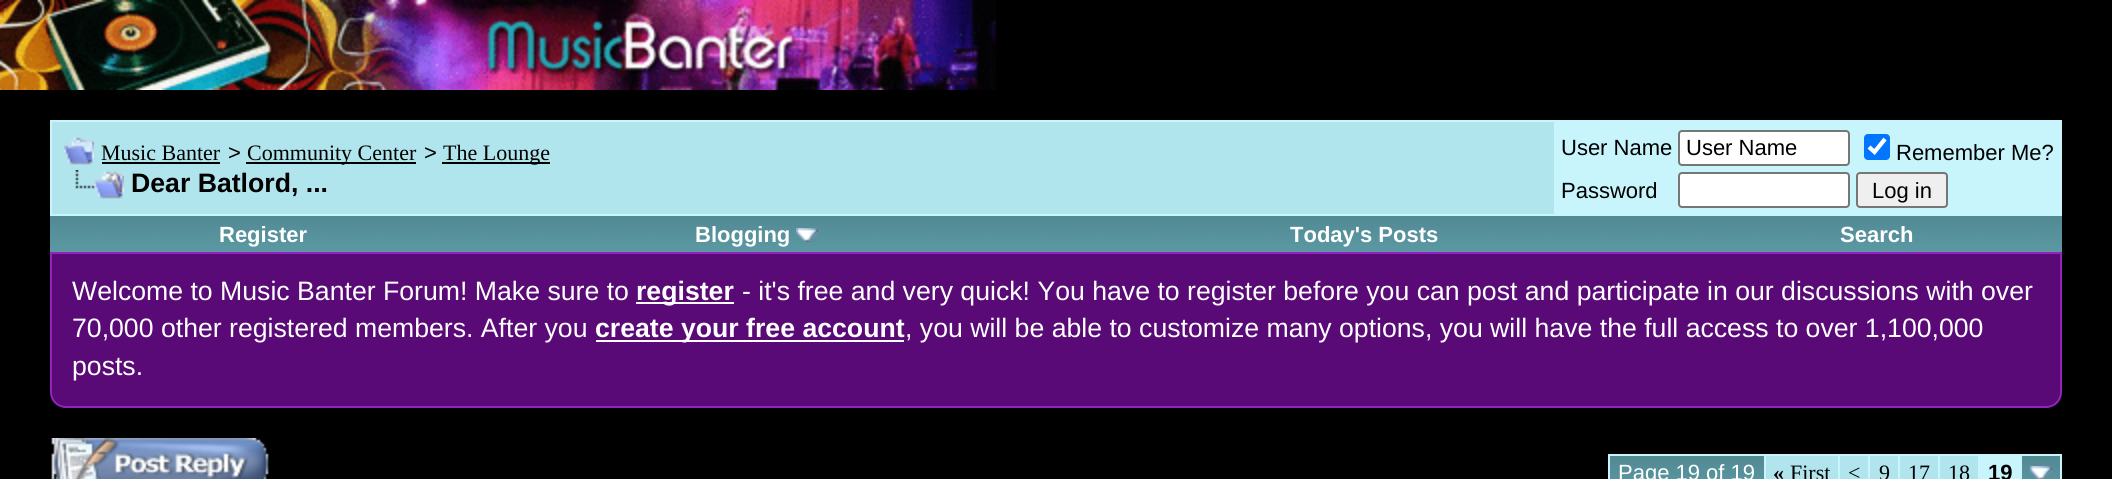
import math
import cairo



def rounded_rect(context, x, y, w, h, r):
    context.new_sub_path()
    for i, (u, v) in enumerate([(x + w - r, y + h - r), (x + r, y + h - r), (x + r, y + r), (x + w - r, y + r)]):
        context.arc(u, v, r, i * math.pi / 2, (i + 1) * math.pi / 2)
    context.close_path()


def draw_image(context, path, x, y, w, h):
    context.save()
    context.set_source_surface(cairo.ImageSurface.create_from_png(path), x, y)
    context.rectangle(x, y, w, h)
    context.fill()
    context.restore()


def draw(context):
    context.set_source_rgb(0, 0, 0)
    context.paint()
    draw_image(context, "images/1.png", 0, 0, 996, 90)
    context.set_source_rgb(200 / 255, 244 / 255, 251 / 255)
    context.rectangle(50, 120, 2012, 96)
    context.fill()
    context.set_source_rgb(176 / 255, 229 / 255, 238 / 255)
    context.rectangle(52, 122, 1502, 92)
    context.fill()
    draw_image(context, "images/2.png", 64, 137, 30, 28)
    context.set_source_rgb(0, 0, 0)
    context.rectangle(102, 162, 118, 2)
    context.fill()
    context.rectangle(246, 162, 170, 2)
    context.fill()
    context.rectangle(442, 162, 108, 2)
    context.fill()
    draw_image(context, "images/3.png", 75, 170, 49, 29)
    context.set_source_rgb(1, 1, 1)
    rounded_rect(context, 1679, 131, 170, 34, 3)
    context.fill_preserve()
    context.set_source_rgb(118 / 255, 118 / 255, 118 / 255)
    context.stroke()
    context.set_source_rgb(0, 117 / 255, 1)
    rounded_rect(context, 1864, 134, 26, 26, 4)
    context.fill()
    context.new_path()
    context.move_to(1869, 147)
    context.line_to(1874.5, 152)
    context.line_to(1885, 139)
    context.set_source_rgb(1, 1, 1)
    context.set_line_width(4.2)
    context.stroke()
    rounded_rect(context, 1679, 173, 170, 34, 3)
    context.fill_preserve()
    context.set_source_rgb(118 / 255, 118 / 255, 118 / 255)
    context.set_line_width(2)
    context.stroke()
    context.set_source_rgb(239 / 255, 239 / 255, 239 / 255)
    rounded_rect(context, 1857, 173, 90, 34, 3)
    context.fill_preserve()
    context.set_source_rgb(118 / 255, 118 / 255, 118 / 255)
    context.stroke()
    draw_image(context, "images/4.png", 50, 216, 426, 36)
    draw_image(context, "images/5.png", 476, 216, 560, 36)
    draw_image(context, "images/6.png", 796, 228, 22, 14)
    draw_image(context, "images/7.png", 1036, 216, 656, 36)
    draw_image(context, "images/8.png", 1692, 216, 370, 36)
    context.set_source_rgb(89 / 255, 10 / 255, 118 / 255)
    context.new_path()
    context.move_to(51, 253)
    context.line_to(2061, 253)
    context.line_to(2061, 392)
    context.curve_to(2061, 400.5, 2054.5, 407, 2046, 407)
    context.line_to(66, 407)
    context.curve_to(57.5, 407, 51, 400.5, 51, 392)
    context.close_path()
    context.fill_preserve()
    context.set_source_rgb(148 / 255, 35 / 255, 190 / 255)
    context.stroke()
    context.set_source_rgb(1, 1, 1)
    context.rectangle(636, 302, 98, 2)
    context.fill()
    context.rectangle(596, 340, 308, 2)
    context.fill()
    draw_image(context, "images/9.png", 51, 438, 218, 41)
    context.set_source_rgb(200 / 255, 244 / 255, 251 / 255)
    context.rectangle(1608, 454, 454, 25)
    context.fill()
    draw_image(context, "images/10.png", 1610, 456, 154, 23)
    context.set_source_rgb(176 / 255, 229 / 255, 238 / 255)
    context.rectangle(1766, 456, 72, 23)
    context.fill()
    context.rectangle(1840, 456, 28, 23)
    context.fill()
    context.rectangle(1870, 456, 28, 23)
    context.fill()
    context.rectangle(1900, 456, 38, 23)
    context.fill()
    context.rectangle(1940, 456, 38, 23)
    context.fill()
    draw_image(context, "images/11.png", 2022, 456, 38, 23)
    draw_image(context, "images/12.png", 2030, 466, 22, 13)
    context.select_font_face("Liberation Serif")
    context.set_font_size(22)
    context.set_source_rgb(0, 0, 0)
    context.move_to(101, 160)
    context.show_text("Music Banter")
    context.select_font_face("Liberation Sans")
    context.move_to(228, 160)
    context.show_text(">")
    context.select_font_face("Liberation Serif")
    context.move_to(247, 160)
    context.show_text("Community Center")
    context.select_font_face("Liberation Sans")
    context.move_to(424, 160)
    context.show_text(">")
    context.select_font_face("Liberation Serif")
    context.move_to(443, 160)
    context.show_text("The Lounge")
    context.select_font_face("Liberation Sans", cairo.FontSlant.NORMAL, cairo.FontWeight.BOLD)
    context.set_font_size(26.65)
    context.move_to(131, 192)
    context.show_text("Dear Batlord, ...")
    context.select_font_face("Liberation Sans")
    context.set_font_size(22)
    context.move_to(1561, 155)
    context.show_text("User Name")
    context.move_to(1686, 155)
    context.show_text("User Name")
    context.move_to(1896, 160)
    context.show_text("Remember Me?")
    context.move_to(1561, 198)
    context.show_text("Password")
    context.move_to(1872, 198)
    context.show_text("Log in")
    context.select_font_face("Liberation Sans", cairo.FontSlant.NORMAL, cairo.FontWeight.BOLD)
    context.set_source_rgb(1, 1, 1)
    context.move_to(219, 242)
    context.show_text("Register")
    context.move_to(695, 242)
    context.show_text("Blogging")
    context.move_to(1290, 242)
    context.show_text("Today's Posts")
    context.move_to(1840, 242)
    context.show_text("Search")
    context.select_font_face("Liberation Sans")
    context.set_font_size(26.65)
    context.move_to(72, 300)
    context.show_text("Welcome to Music Banter Forum! Make sure to")
    context.select_font_face("Liberation Sans", cairo.FontSlant.NORMAL, cairo.FontWeight.BOLD)
    context.move_to(636, 300)
    context.show_text("register")
    context.select_font_face("Liberation Sans")
    context.move_to(742, 300)
    context.show_text("- it's free and very quick! You have to register before you can post and participate in our discussions with over")
    context.move_to(72, 337)
    context.show_text("70,000 other registered members. After you")
    context.select_font_face("Liberation Sans", cairo.FontSlant.NORMAL, cairo.FontWeight.BOLD)
    context.move_to(595, 337)
    context.show_text("create your free account")
    context.select_font_face("Liberation Sans")
    context.move_to(905, 337)
    context.show_text(", you will be able to customize many options, you will have the full access to over 1,100,000")
    context.move_to(72, 375)
    context.show_text("posts.")
    context.set_font_size(22)
    context.move_to(1618, 480)
    context.show_text("Page 19 of 19")
    context.select_font_face("Liberation Serif", cairo.FontSlant.NORMAL, cairo.FontWeight.BOLD)
    context.set_source_rgb(0, 0, 0)
    context.move_to(1773, 480)
    context.show_text("«")
    context.select_font_face("Liberation Serif")
    context.move_to(1790, 480)
    context.show_text("First")
    context.move_to(1848, 480)
    context.show_text("<")
    context.move_to(1879, 480)
    context.show_text("9")
    context.move_to(1908, 480)
    context.show_text("17")
    context.move_to(1948, 480)
    context.show_text("18")
    context.select_font_face("Liberation Sans", cairo.FontSlant.NORMAL, cairo.FontWeight.BOLD)
    context.move_to(1988, 480)
    context.show_text("19")


surface = cairo.ImageSurface(cairo.Format.RGB24, 2112, 479)
context = cairo.Context(surface)
options = cairo.FontOptions()
options.set_hint_metrics(cairo.HintMetrics.OFF)
options.set_hint_style(cairo.HintStyle.NONE)
context.set_font_options(options)
context.set_miter_limit(4)
draw(context)
surface.write_to_png("out.png")
